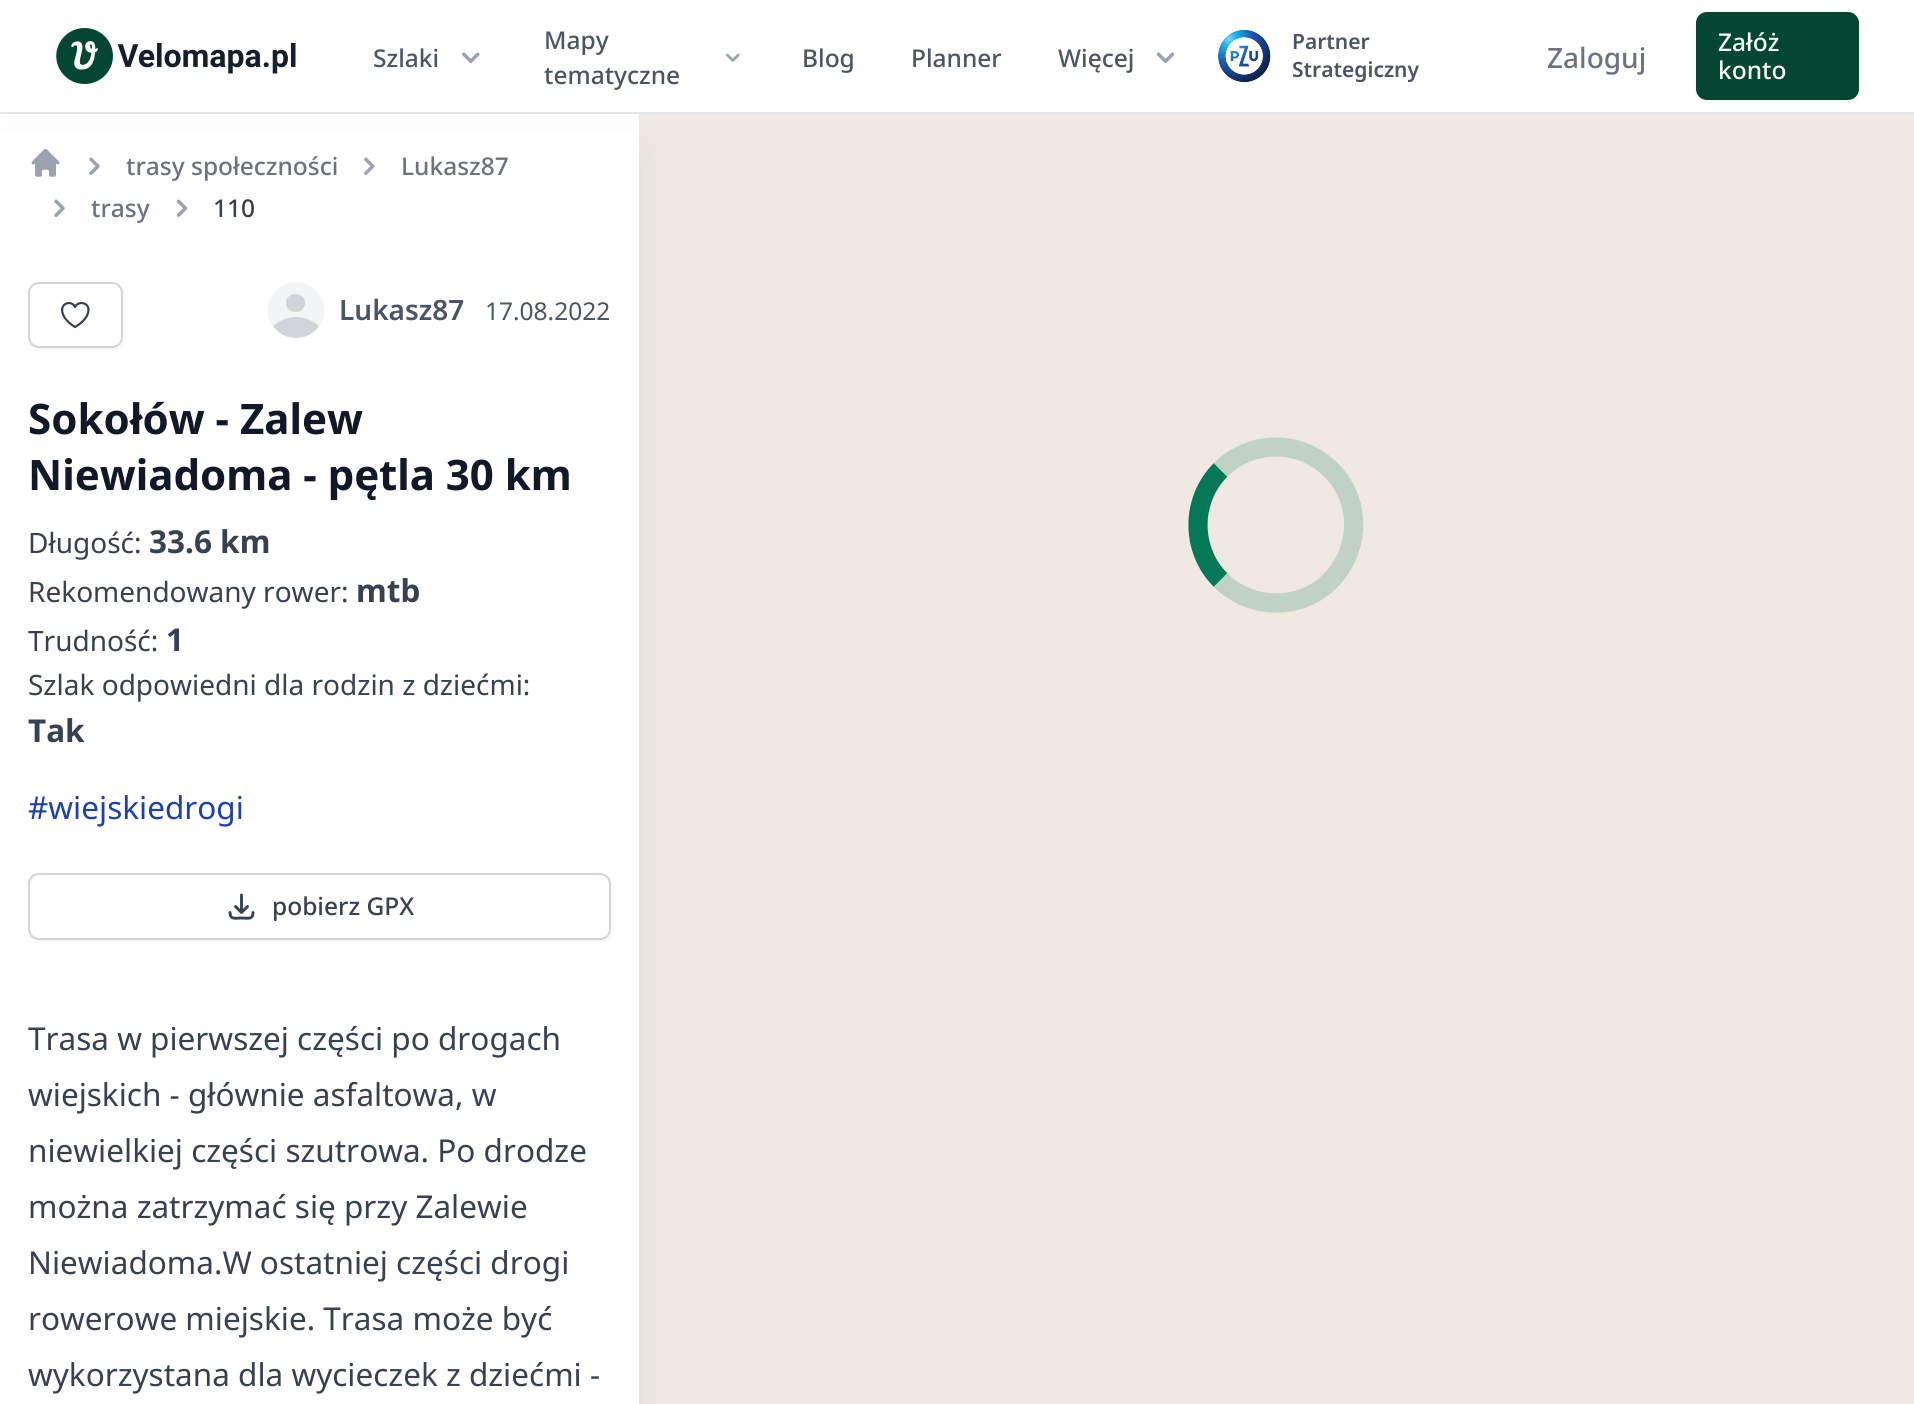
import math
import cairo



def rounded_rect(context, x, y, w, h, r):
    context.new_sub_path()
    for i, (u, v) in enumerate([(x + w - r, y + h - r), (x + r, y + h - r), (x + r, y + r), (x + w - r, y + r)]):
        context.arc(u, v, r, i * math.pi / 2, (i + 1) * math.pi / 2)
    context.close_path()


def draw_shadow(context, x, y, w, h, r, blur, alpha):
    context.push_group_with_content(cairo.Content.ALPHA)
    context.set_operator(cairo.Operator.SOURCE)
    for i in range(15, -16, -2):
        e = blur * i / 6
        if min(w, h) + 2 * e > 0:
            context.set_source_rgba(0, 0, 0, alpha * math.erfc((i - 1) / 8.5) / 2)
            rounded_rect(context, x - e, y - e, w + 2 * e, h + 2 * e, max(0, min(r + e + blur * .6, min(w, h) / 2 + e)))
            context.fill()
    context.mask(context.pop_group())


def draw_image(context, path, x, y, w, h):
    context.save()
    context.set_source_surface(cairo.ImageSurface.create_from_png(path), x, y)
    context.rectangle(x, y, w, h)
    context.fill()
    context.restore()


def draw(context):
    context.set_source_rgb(1, 1, 1)
    context.paint()
    context.set_source_rgb(227 / 255, 230 / 255, 233 / 255)
    context.rectangle(0, 112, 1914, 2)
    context.fill()
    draw_image(context, "images/1.png", 56, 28, 240, 56)
    draw_image(context, "images/2.png", 462, 52, 18, 11)
    draw_image(context, "images/3.png", 726, 53, 14, 9)
    draw_image(context, "images/4.png", 1156, 52, 19, 11)
    draw_image(context, "images/5.png", 1218, 30, 53, 52)
    context.set_source_rgb(0, 0, 0)
    draw_shadow(context, 1696, 14, 163, 88, 11, 2, 0.05)
    context.set_source_rgb(3 / 255, 71 / 255, 50 / 255)
    rounded_rect(context, 1696, 12, 163, 88, 11)
    context.fill()
    context.set_source_rgb(239 / 255, 233 / 255, 225 / 255)
    context.rectangle(639, 114, 1275, 1290)
    context.fill()
    context.set_source_rgb(0, 0, 0)
    draw_shadow(context, 9, 158, 621, 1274, 0, 22, 0.1)
    context.set_source_rgb(1, 1, 1)
    context.rectangle(0, 130, 639, 1274)
    context.fill()
    draw_image(context, "images/6.png", 31, 148, 29, 29)
    draw_image(context, "images/7.png", 89, 157, 11, 18)
    draw_image(context, "images/8.png", 364, 157, 11, 18)
    draw_image(context, "images/7.png", 54, 199, 11, 18)
    draw_image(context, "images/9.png", 176, 199, 12, 18)
    context.set_source_rgb(0, 0, 0)
    draw_shadow(context, 28, 284, 95, 66, 11, 2, 0.05)
    context.set_source_rgb(1, 1, 1)
    rounded_rect(context, 29, 283, 93, 64, 10)
    context.fill_preserve()
    context.set_source_rgb(209 / 255, 213 / 255, 219 / 255)
    context.stroke()
    context.new_path()
    context.move_to(88.5, 309.5)
    context.curve_to(88.5, 302.5, 78, 300.5, 75, 307)
    context.curve_to(71.5, 299, 57, 303.5, 64, 316.5)
    context.curve_to(66.5, 321, 71, 324.5, 75, 327)
    context.curve_to(75, 327, 88.5, 320, 88.5, 309.5)
    context.close_path()
    context.set_source_rgb(55 / 255, 65 / 255, 81 / 255)
    context.set_line_width(2.2)
    context.set_line_cap(cairo.LineCap.ROUND)
    context.set_line_join(cairo.LineJoin.ROUND)
    context.stroke()
    context.set_source_rgb(243 / 255, 244 / 255, 246 / 255)
    context.arc(296, 310, 28, 0, 2 * math.pi)
    context.fill()
    context.set_source_rgb(209 / 255, 213 / 255, 219 / 255)
    context.set_fill_rule(cairo.FillRule.EVEN_ODD)
    context.new_path()
    context.move_to(319, 326)
    context.curve_to(308, 342, 284, 342, 273, 326)
    context.curve_to(286, 314, 306, 314, 319, 326)
    context.close_path()
    context.move_to(305, 303)
    context.curve_to(305, 291, 286, 291, 286, 303)
    context.curve_to(286, 315, 305, 315, 305, 303)
    context.close_path()
    context.fill()
    context.set_source_rgb(0, 0, 0)
    draw_shadow(context, 28, 875, 583, 67, 11, 2, 0.05)
    context.set_source_rgb(1, 1, 1)
    rounded_rect(context, 29, 874, 581, 65, 10)
    context.fill_preserve()
    context.set_source_rgb(209 / 255, 213 / 255, 219 / 255)
    context.set_line_width(2)
    context.set_line_cap(cairo.LineCap.BUTT)
    context.set_line_join(cairo.LineJoin.MITER)
    context.stroke()
    context.new_path()
    context.move_to(230, 912.5)
    context.curve_to(230, 920, 235.5, 918, 241.5, 918)
    context.curve_to(247.5, 918, 253, 920, 253, 912.5)
    context.move_to(247.5, 906.5)
    context.line_to(241.5, 912.5)
    context.move_to(241.5, 912.5)
    context.line_to(235.5, 906.5)
    context.move_to(241.5, 912.5)
    context.line_to(241.5, 895)
    context.set_source_rgb(55 / 255, 65 / 255, 81 / 255)
    context.set_line_width(2.9)
    context.set_line_cap(cairo.LineCap.ROUND)
    context.set_line_join(cairo.LineJoin.ROUND)
    context.stroke()
    context.new_path()
    context.move_to(1220.5, 470)
    context.curve_to(1239, 451.5, 1265.5, 443.5, 1291, 448.5)
    context.curve_to(1306, 451.5, 1320, 459, 1331, 470)
    context.curve_to(1379.5, 519, 1345, 603, 1276, 603)
    context.curve_to(1255, 603, 1235, 594.5, 1220.5, 580)
    context.set_source_rgb(192 / 255, 210 / 255, 197 / 255)
    context.set_line_width(19.2)
    context.set_line_cap(cairo.LineCap.BUTT)
    context.set_line_join(cairo.LineJoin.MITER)
    context.stroke()
    context.new_path()
    context.move_to(1220.5, 580)
    context.curve_to(1190.5, 550, 1190.5, 500, 1220.5, 470)
    context.set_source_rgb(4 / 255, 120 / 255, 87 / 255)
    context.stroke()
    context.select_font_face("Noto Sans Medium")
    context.set_font_size(24.5)
    context.set_source_rgb(75 / 255, 85 / 255, 99 / 255)
    context.move_to(373, 67)
    context.show_text("Szlaki")
    context.move_to(544, 49)
    context.show_text("Mapy")
    context.move_to(544, 84)
    context.show_text("tematyczne")
    context.move_to(802, 67)
    context.show_text("Blog")
    context.move_to(911, 67)
    context.show_text("Planner")
    context.move_to(1058, 67)
    context.show_text("Więcej")
    context.select_font_face("Noto Sans SemiBold")
    context.set_font_size(21)
    context.move_to(1292, 49)
    context.show_text("Partner")
    context.move_to(1292, 77)
    context.show_text("Strategiczny")
    context.select_font_face("Noto Sans Medium")
    context.set_font_size(28)
    context.set_source_rgb(107 / 255, 114 / 255, 128 / 255)
    context.move_to(1547, 68)
    context.show_text("Zaloguj")
    context.set_font_size(24.5)
    context.set_source_rgb(1, 1, 1)
    context.move_to(1718, 51)
    context.show_text("Załóż")
    context.move_to(1718, 79)
    context.show_text("konto")
    context.set_source_rgb(107 / 255, 114 / 255, 128 / 255)
    context.move_to(126, 175)
    context.show_text("trasy społeczności")
    context.move_to(401, 175)
    context.show_text("Lukasz87")
    context.move_to(91, 217)
    context.show_text("trasy")
    context.set_source_rgb(55 / 255, 65 / 255, 81 / 255)
    context.move_to(213, 217)
    context.show_text("110")
    context.select_font_face("Noto Sans SemiBold")
    context.set_font_size(28)
    context.set_source_rgb(75 / 255, 85 / 255, 99 / 255)
    context.move_to(339, 320)
    context.show_text("Lukasz87")
    context.select_font_face("Noto Sans")
    context.set_font_size(24.5)
    context.move_to(485, 320)
    context.show_text("17.08.2022")
    context.select_font_face("Noto Sans", cairo.FontSlant.NORMAL, cairo.FontWeight.BOLD)
    context.set_font_size(42)
    context.set_source_rgb(17 / 255, 24 / 255, 39 / 255)
    context.move_to(28, 434)
    context.show_text("Sokołów - Zalew")
    context.move_to(28, 490)
    context.show_text("Niewiadoma - pętla 30 km")
    context.select_font_face("Noto Sans")
    context.set_font_size(28)
    context.set_source_rgb(55 / 255, 65 / 255, 81 / 255)
    context.move_to(28, 553)
    context.show_text("Długość:")
    context.select_font_face("Noto Sans", cairo.FontSlant.NORMAL, cairo.FontWeight.BOLD)
    context.set_font_size(31.5)
    context.move_to(149, 553)
    context.show_text("33.6 km")
    context.select_font_face("Noto Sans")
    context.set_font_size(28)
    context.move_to(28, 602)
    context.show_text("Rekomendowany rower:")
    context.select_font_face("Noto Sans", cairo.FontSlant.NORMAL, cairo.FontWeight.BOLD)
    context.set_font_size(31.5)
    context.move_to(356, 602)
    context.show_text("mtb")
    context.select_font_face("Noto Sans")
    context.set_font_size(28)
    context.move_to(28, 651)
    context.show_text("Trudność:")
    context.select_font_face("Noto Sans", cairo.FontSlant.NORMAL, cairo.FontWeight.BOLD)
    context.set_font_size(31.5)
    context.move_to(166, 651)
    context.show_text("1")
    context.select_font_face("Noto Sans")
    context.set_font_size(28)
    context.move_to(28, 695)
    context.show_text("Szlak odpowiedni dla rodzin z dziećmi:")
    context.select_font_face("Noto Sans", cairo.FontSlant.NORMAL, cairo.FontWeight.BOLD)
    context.set_font_size(31.5)
    context.move_to(28, 742)
    context.show_text("Tak")
    context.select_font_face("Noto Sans")
    context.set_source_rgb(30 / 255, 64 / 255, 175 / 255)
    context.move_to(28, 819)
    context.show_text("#wiejskiedrogi")
    context.select_font_face("Noto Sans Medium")
    context.set_font_size(24.5)
    context.set_source_rgb(55 / 255, 65 / 255, 81 / 255)
    context.move_to(272, 915)
    context.show_text("pobierz GPX")
    context.select_font_face("Noto Sans")
    context.set_font_size(31.5)
    context.move_to(28, 1050)
    context.show_text("Trasa w pierwszej części po drogach")
    context.move_to(28, 1106)
    context.show_text("wiejskich - głównie asfaltowa, w")
    context.move_to(28, 1162)
    context.show_text("niewielkiej części szutrowa. Po drodze")
    context.move_to(28, 1218)
    context.show_text("można zatrzymać się przy Zalewie")
    context.move_to(28, 1274)
    context.show_text("Niewiadoma.W ostatniej części drogi")
    context.move_to(28, 1330)
    context.show_text("rowerowe miejskie. Trasa może być")
    context.move_to(28, 1386)
    context.show_text("wykorzystana dla wycieczek z dziećmi -")


surface = cairo.ImageSurface(cairo.Format.RGB24, 1914, 1404)
context = cairo.Context(surface)
options = cairo.FontOptions()
options.set_hint_metrics(cairo.HintMetrics.OFF)
options.set_hint_style(cairo.HintStyle.NONE)
context.set_font_options(options)
context.set_miter_limit(4)
draw(context)
surface.write_to_png("out.png")
